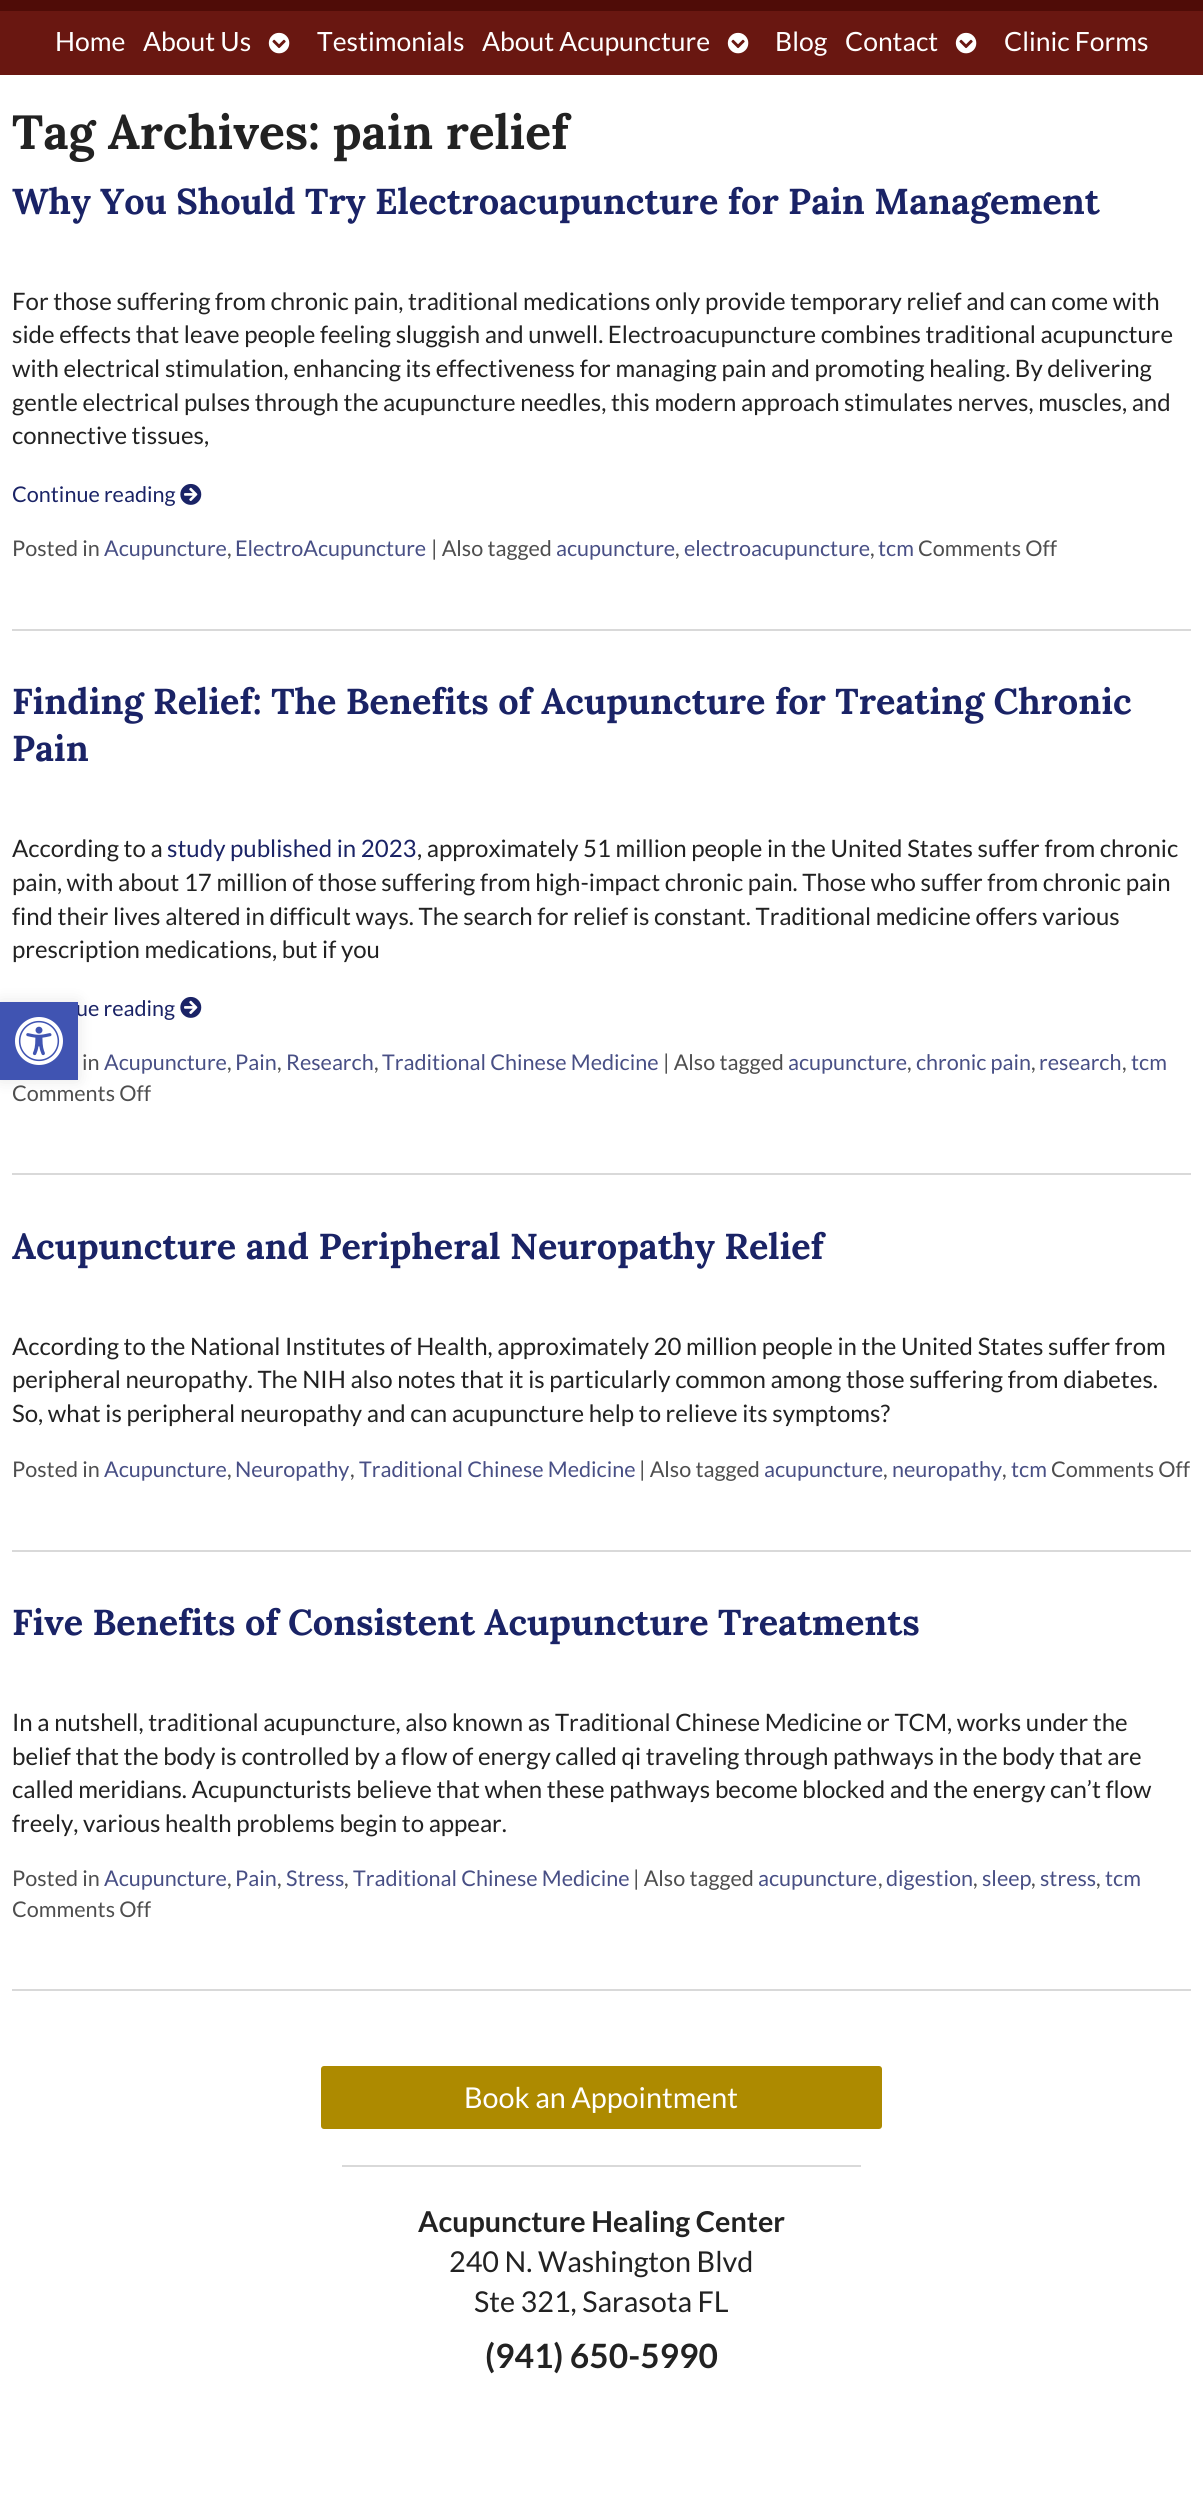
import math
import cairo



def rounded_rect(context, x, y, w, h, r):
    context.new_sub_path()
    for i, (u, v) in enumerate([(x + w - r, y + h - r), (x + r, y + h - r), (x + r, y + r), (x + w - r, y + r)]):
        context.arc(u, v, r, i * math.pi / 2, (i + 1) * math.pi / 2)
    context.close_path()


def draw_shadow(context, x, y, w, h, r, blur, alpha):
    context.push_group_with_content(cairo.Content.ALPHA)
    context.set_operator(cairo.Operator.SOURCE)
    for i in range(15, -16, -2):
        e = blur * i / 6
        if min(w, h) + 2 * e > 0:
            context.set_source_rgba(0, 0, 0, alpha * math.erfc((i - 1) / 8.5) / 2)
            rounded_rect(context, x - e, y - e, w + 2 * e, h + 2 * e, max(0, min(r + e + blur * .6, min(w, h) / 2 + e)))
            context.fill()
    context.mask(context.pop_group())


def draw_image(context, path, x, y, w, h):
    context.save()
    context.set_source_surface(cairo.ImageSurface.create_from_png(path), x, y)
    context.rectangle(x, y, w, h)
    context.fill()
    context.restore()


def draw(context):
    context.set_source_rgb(1, 1, 1)
    context.paint()
    context.set_source_rgb(79 / 255, 12 / 255, 7 / 255)
    context.rectangle(0, 0, 1203, 11)
    context.fill()
    context.set_source_rgb(105 / 255, 23 / 255, 17 / 255)
    context.rectangle(0, 11, 1203, 64)
    context.fill()
    draw_image(context, "images/1.png", 268, 32, 22, 22)
    draw_image(context, "images/1.png", 727, 32, 22, 22)
    draw_image(context, "images/1.png", 955, 32, 22, 22)
    context.set_source_rgb(217 / 255, 217 / 255, 217 / 255)
    context.rectangle(12, 629, 1179, 2)
    context.fill()
    draw_image(context, "images/2.png", 180, 483, 22, 22)
    context.rectangle(12, 1173, 1179, 2)
    context.fill()
    draw_image(context, "images/2.png", 180, 996, 22, 22)
    context.rectangle(12, 1550, 1179, 2)
    context.fill()
    context.rectangle(12, 1989, 1179, 2)
    context.fill()
    context.set_source_rgb(173 / 255, 138 / 255, 0)
    rounded_rect(context, 321, 2066, 561, 63, 3)
    context.fill()
    context.set_source_rgb(217 / 255, 217 / 255, 217 / 255)
    context.rectangle(342, 2165, 519, 2)
    context.fill()
    context.set_source_rgb(0, 0, 0)
    draw_shadow(context, 0, 1002, 78, 78, 0, 7.5, 0.1)
    context.select_font_face("Lato")
    context.set_font_size(26.5)
    context.set_source_rgb(1, 1, 1)
    context.move_to(55, 51)
    context.show_text("Home")
    context.move_to(143, 51)
    context.show_text("About Us")
    context.move_to(317, 51)
    context.show_text("Testimonials")
    context.move_to(482, 51)
    context.show_text("About Acupuncture")
    context.move_to(775, 51)
    context.show_text("Blog")
    context.move_to(845, 51)
    context.show_text("Contact")
    context.move_to(1004, 51)
    context.show_text("Clinic Forms")
    context.select_font_face("Lora", cairo.FontSlant.NORMAL, cairo.FontWeight.BOLD)
    context.set_font_size(48)
    context.set_source_rgb(34 / 255, 34 / 255, 34 / 255)
    context.move_to(12, 149)
    context.show_text("Tag Archives: pain relief")
    context.set_font_size(36)
    context.set_source_rgb(26 / 255, 35 / 255, 102 / 255)
    context.move_to(12, 214)
    context.show_text("Why You Should Try Electroacupuncture for Pain Management")
    context.select_font_face("Lato")
    context.set_font_size(24)
    context.set_source_rgb(34 / 255, 34 / 255, 34 / 255)
    context.move_to(12, 310)
    context.show_text("For those suffering from chronic pain, traditional medications only provide temporary relief and can come with")
    context.move_to(12, 343)
    context.show_text("side effects that leave people feeling sluggish and unwell. Electroacupuncture combines traditional acupuncture")
    context.move_to(12, 377)
    context.show_text("with electrical stimulation, enhancing its effectiveness for managing pain and promoting healing. By delivering")
    context.move_to(12, 411)
    context.show_text("gentle electrical pulses through the acupuncture needles, this modern approach stimulates nerves, muscles, and")
    context.move_to(12, 444)
    context.show_text("connective tissues,")
    context.set_font_size(21.6)
    context.set_source_rgb(26 / 255, 35 / 255, 102 / 255)
    context.move_to(12, 502)
    context.show_text("Continue reading")
    context.set_source_rgb(78 / 255, 78 / 255, 78 / 255)
    context.move_to(12, 556)
    context.show_text("Posted in")
    context.set_source_rgb(72 / 255, 79 / 255, 133 / 255)
    context.move_to(104, 556)
    context.show_text("Acupuncture")
    context.set_source_rgb(78 / 255, 78 / 255, 78 / 255)
    context.move_to(227, 556)
    context.show_text(",")
    context.set_source_rgb(72 / 255, 79 / 255, 133 / 255)
    context.move_to(235, 556)
    context.show_text("ElectroAcupuncture")
    context.set_source_rgb(78 / 255, 78 / 255, 78 / 255)
    context.move_to(431, 556)
    context.show_text("| Also tagged")
    context.set_source_rgb(72 / 255, 79 / 255, 133 / 255)
    context.move_to(556, 556)
    context.show_text("acupuncture")
    context.set_source_rgb(78 / 255, 78 / 255, 78 / 255)
    context.move_to(675, 556)
    context.show_text(",")
    context.set_source_rgb(72 / 255, 79 / 255, 133 / 255)
    context.move_to(684, 556)
    context.show_text("electroacupuncture")
    context.set_source_rgb(78 / 255, 78 / 255, 78 / 255)
    context.move_to(870, 556)
    context.show_text(",")
    context.set_source_rgb(72 / 255, 79 / 255, 133 / 255)
    context.move_to(878, 556)
    context.show_text("tcm")
    context.set_source_rgb(78 / 255, 78 / 255, 78 / 255)
    context.move_to(918, 556)
    context.show_text("Comments Off")
    context.select_font_face("Lora", cairo.FontSlant.NORMAL, cairo.FontWeight.BOLD)
    context.set_font_size(36)
    context.set_source_rgb(26 / 255, 35 / 255, 102 / 255)
    context.move_to(12, 714)
    context.show_text("Finding Relief: The Benefits of Acupuncture for Treating Chronic")
    context.move_to(12, 761)
    context.show_text("Pain")
    context.select_font_face("Lato")
    context.set_font_size(24)
    context.set_source_rgb(34 / 255, 34 / 255, 34 / 255)
    context.move_to(12, 857)
    context.show_text("According to a")
    context.set_source_rgb(26 / 255, 35 / 255, 102 / 255)
    context.move_to(167, 857)
    context.show_text("study published in 2023")
    context.set_source_rgb(34 / 255, 34 / 255, 34 / 255)
    context.move_to(417, 857)
    context.show_text(", approximately 51 million people in the United States suffer from chronic")
    context.move_to(12, 891)
    context.show_text("pain, with about 17 million of those suffering from high-impact chronic pain. Those who suffer from chronic pain")
    context.move_to(12, 925)
    context.show_text("find their lives altered in difficult ways. The search for relief is constant. Traditional medicine offers various")
    context.move_to(12, 958)
    context.show_text("prescription medications, but if you")
    context.set_font_size(21.6)
    context.set_source_rgb(26 / 255, 35 / 255, 102 / 255)
    context.move_to(76, 1016)
    context.show_text("ue reading")
    context.set_source_rgb(78 / 255, 78 / 255, 78 / 255)
    context.move_to(82, 1070)
    context.show_text("in")
    context.set_source_rgb(72 / 255, 79 / 255, 133 / 255)
    context.move_to(104, 1070)
    context.show_text("Acupuncture")
    context.set_source_rgb(78 / 255, 78 / 255, 78 / 255)
    context.move_to(227, 1070)
    context.show_text(",")
    context.set_source_rgb(72 / 255, 79 / 255, 133 / 255)
    context.move_to(235, 1070)
    context.show_text("Pain")
    context.set_source_rgb(78 / 255, 78 / 255, 78 / 255)
    context.move_to(277, 1070)
    context.show_text(",")
    context.set_source_rgb(72 / 255, 79 / 255, 133 / 255)
    context.move_to(286, 1070)
    context.show_text("Research")
    context.set_source_rgb(78 / 255, 78 / 255, 78 / 255)
    context.move_to(374, 1070)
    context.show_text(",")
    context.set_source_rgb(72 / 255, 79 / 255, 133 / 255)
    context.move_to(382, 1070)
    context.show_text("Traditional Chinese Medicine")
    context.set_source_rgb(78 / 255, 78 / 255, 78 / 255)
    context.move_to(663, 1070)
    context.show_text("| Also tagged")
    context.set_source_rgb(72 / 255, 79 / 255, 133 / 255)
    context.move_to(788, 1070)
    context.show_text("acupuncture")
    context.set_source_rgb(78 / 255, 78 / 255, 78 / 255)
    context.move_to(907, 1070)
    context.show_text(",")
    context.set_source_rgb(72 / 255, 79 / 255, 133 / 255)
    context.move_to(916, 1070)
    context.show_text("chronic pain")
    context.set_source_rgb(78 / 255, 78 / 255, 78 / 255)
    context.move_to(1031, 1070)
    context.show_text(",")
    context.set_source_rgb(72 / 255, 79 / 255, 133 / 255)
    context.move_to(1039, 1070)
    context.show_text("research")
    context.set_source_rgb(78 / 255, 78 / 255, 78 / 255)
    context.move_to(1122, 1070)
    context.show_text(",")
    context.set_source_rgb(72 / 255, 79 / 255, 133 / 255)
    context.move_to(1131, 1070)
    context.show_text("tcm")
    context.set_source_rgb(78 / 255, 78 / 255, 78 / 255)
    context.move_to(12, 1101)
    context.show_text("Comments Off")
    context.select_font_face("Lora", cairo.FontSlant.NORMAL, cairo.FontWeight.BOLD)
    context.set_font_size(36)
    context.set_source_rgb(26 / 255, 35 / 255, 102 / 255)
    context.move_to(12, 1259)
    context.show_text("Acupuncture and Peripheral Neuropathy Relief")
    context.select_font_face("Lato")
    context.set_font_size(24)
    context.set_source_rgb(34 / 255, 34 / 255, 34 / 255)
    context.move_to(12, 1355)
    context.show_text("According to the National Institutes of Health, approximately 20 million people in the United States suffer from")
    context.move_to(12, 1388)
    context.show_text("peripheral neuropathy. The NIH also notes that it is particularly common among those suffering from diabetes.")
    context.move_to(12, 1422)
    context.show_text("So, what is peripheral neuropathy and can acupuncture help to relieve its symptoms?")
    context.set_font_size(21.6)
    context.set_source_rgb(78 / 255, 78 / 255, 78 / 255)
    context.move_to(12, 1477)
    context.show_text("Posted in")
    context.set_source_rgb(72 / 255, 79 / 255, 133 / 255)
    context.move_to(104, 1477)
    context.show_text("Acupuncture")
    context.set_source_rgb(78 / 255, 78 / 255, 78 / 255)
    context.move_to(227, 1477)
    context.show_text(",")
    context.set_source_rgb(72 / 255, 79 / 255, 133 / 255)
    context.move_to(235, 1477)
    context.show_text("Neuropathy")
    context.set_source_rgb(78 / 255, 78 / 255, 78 / 255)
    context.move_to(350, 1477)
    context.show_text(",")
    context.set_source_rgb(72 / 255, 79 / 255, 133 / 255)
    context.move_to(359, 1477)
    context.show_text("Traditional Chinese Medicine")
    context.set_source_rgb(78 / 255, 78 / 255, 78 / 255)
    context.move_to(639, 1477)
    context.show_text("| Also tagged")
    context.set_source_rgb(72 / 255, 79 / 255, 133 / 255)
    context.move_to(764, 1477)
    context.show_text("acupuncture")
    context.set_source_rgb(78 / 255, 78 / 255, 78 / 255)
    context.move_to(883, 1477)
    context.show_text(",")
    context.set_source_rgb(72 / 255, 79 / 255, 133 / 255)
    context.move_to(892, 1477)
    context.show_text("neuropathy")
    context.set_source_rgb(78 / 255, 78 / 255, 78 / 255)
    context.move_to(1002, 1477)
    context.show_text(",")
    context.set_source_rgb(72 / 255, 79 / 255, 133 / 255)
    context.move_to(1011, 1477)
    context.show_text("tcm")
    context.set_source_rgb(78 / 255, 78 / 255, 78 / 255)
    context.move_to(1051, 1477)
    context.show_text("Comments Off")
    context.select_font_face("Lora", cairo.FontSlant.NORMAL, cairo.FontWeight.BOLD)
    context.set_font_size(36)
    context.set_source_rgb(26 / 255, 35 / 255, 102 / 255)
    context.move_to(12, 1635)
    context.show_text("Five Benefits of Consistent Acupuncture Treatments")
    context.select_font_face("Lato")
    context.set_font_size(24)
    context.set_source_rgb(34 / 255, 34 / 255, 34 / 255)
    context.move_to(12, 1731)
    context.show_text("In a nutshell, traditional acupuncture, also known as Traditional Chinese Medicine or TCM, works under the")
    context.move_to(12, 1765)
    context.show_text("belief that the body is controlled by a flow of energy called qi traveling through pathways in the body that are")
    context.move_to(12, 1798)
    context.show_text("called meridians. Acupuncturists believe that when these pathways become blocked and the energy can’t flow")
    context.move_to(12, 1832)
    context.show_text("freely, various health problems begin to appear.")
    context.set_font_size(21.6)
    context.set_source_rgb(78 / 255, 78 / 255, 78 / 255)
    context.move_to(12, 1886)
    context.show_text("Posted in")
    context.set_source_rgb(72 / 255, 79 / 255, 133 / 255)
    context.move_to(104, 1886)
    context.show_text("Acupuncture")
    context.set_source_rgb(78 / 255, 78 / 255, 78 / 255)
    context.move_to(227, 1886)
    context.show_text(",")
    context.set_source_rgb(72 / 255, 79 / 255, 133 / 255)
    context.move_to(235, 1886)
    context.show_text("Pain")
    context.set_source_rgb(78 / 255, 78 / 255, 78 / 255)
    context.move_to(277, 1886)
    context.show_text(",")
    context.set_source_rgb(72 / 255, 79 / 255, 133 / 255)
    context.move_to(286, 1886)
    context.show_text("Stress")
    context.set_source_rgb(78 / 255, 78 / 255, 78 / 255)
    context.move_to(344, 1886)
    context.show_text(",")
    context.set_source_rgb(72 / 255, 79 / 255, 133 / 255)
    context.move_to(353, 1886)
    context.show_text("Traditional Chinese Medicine")
    context.set_source_rgb(78 / 255, 78 / 255, 78 / 255)
    context.move_to(633, 1886)
    context.show_text("| Also tagged")
    context.set_source_rgb(72 / 255, 79 / 255, 133 / 255)
    context.move_to(758, 1886)
    context.show_text("acupuncture")
    context.set_source_rgb(78 / 255, 78 / 255, 78 / 255)
    context.move_to(878, 1886)
    context.show_text(",")
    context.set_source_rgb(72 / 255, 79 / 255, 133 / 255)
    context.move_to(886, 1886)
    context.show_text("digestion")
    context.set_source_rgb(78 / 255, 78 / 255, 78 / 255)
    context.move_to(973, 1886)
    context.show_text(",")
    context.set_source_rgb(72 / 255, 79 / 255, 133 / 255)
    context.move_to(982, 1886)
    context.show_text("sleep")
    context.set_source_rgb(78 / 255, 78 / 255, 78 / 255)
    context.move_to(1031, 1886)
    context.show_text(",")
    context.set_source_rgb(72 / 255, 79 / 255, 133 / 255)
    context.move_to(1040, 1886)
    context.show_text("stress")
    context.set_source_rgb(78 / 255, 78 / 255, 78 / 255)
    context.move_to(1096, 1886)
    context.show_text(",")
    context.set_source_rgb(72 / 255, 79 / 255, 133 / 255)
    context.move_to(1105, 1886)
    context.show_text("tcm")
    context.set_source_rgb(78 / 255, 78 / 255, 78 / 255)
    context.move_to(12, 1917)
    context.show_text("Comments Off")
    context.set_font_size(28.75)
    context.set_source_rgb(1, 1, 1)
    context.move_to(464, 2108)
    context.show_text("Book an Appointment")
    context.select_font_face("Lato", cairo.FontSlant.NORMAL, cairo.FontWeight.BOLD)
    context.set_source_rgb(34 / 255, 34 / 255, 34 / 255)
    context.move_to(418, 2232)
    context.show_text("Acupuncture Healing Center")
    context.select_font_face("Lato")
    context.move_to(449, 2272)
    context.show_text("240 N. Washington Blvd")
    context.move_to(474, 2312)
    context.show_text("Ste 321, Sarasota FL")
    context.select_font_face("Lato", cairo.FontSlant.NORMAL, cairo.FontWeight.BOLD)
    context.set_font_size(33.5)
    context.move_to(485, 2368)
    context.show_text("(941) 650-5990")
    context.set_source_rgb(64 / 255, 84 / 255, 178 / 255)
    context.rectangle(0, 1002, 78, 78)
    context.fill()
    draw_image(context, "images/3.png", 15, 1017, 48, 48)


surface = cairo.ImageSurface(cairo.Format.RGB24, 1203, 2503)
context = cairo.Context(surface)
options = cairo.FontOptions()
options.set_hint_metrics(cairo.HintMetrics.OFF)
options.set_hint_style(cairo.HintStyle.NONE)
context.set_font_options(options)
context.set_miter_limit(4)
draw(context)
surface.write_to_png("out.png")
